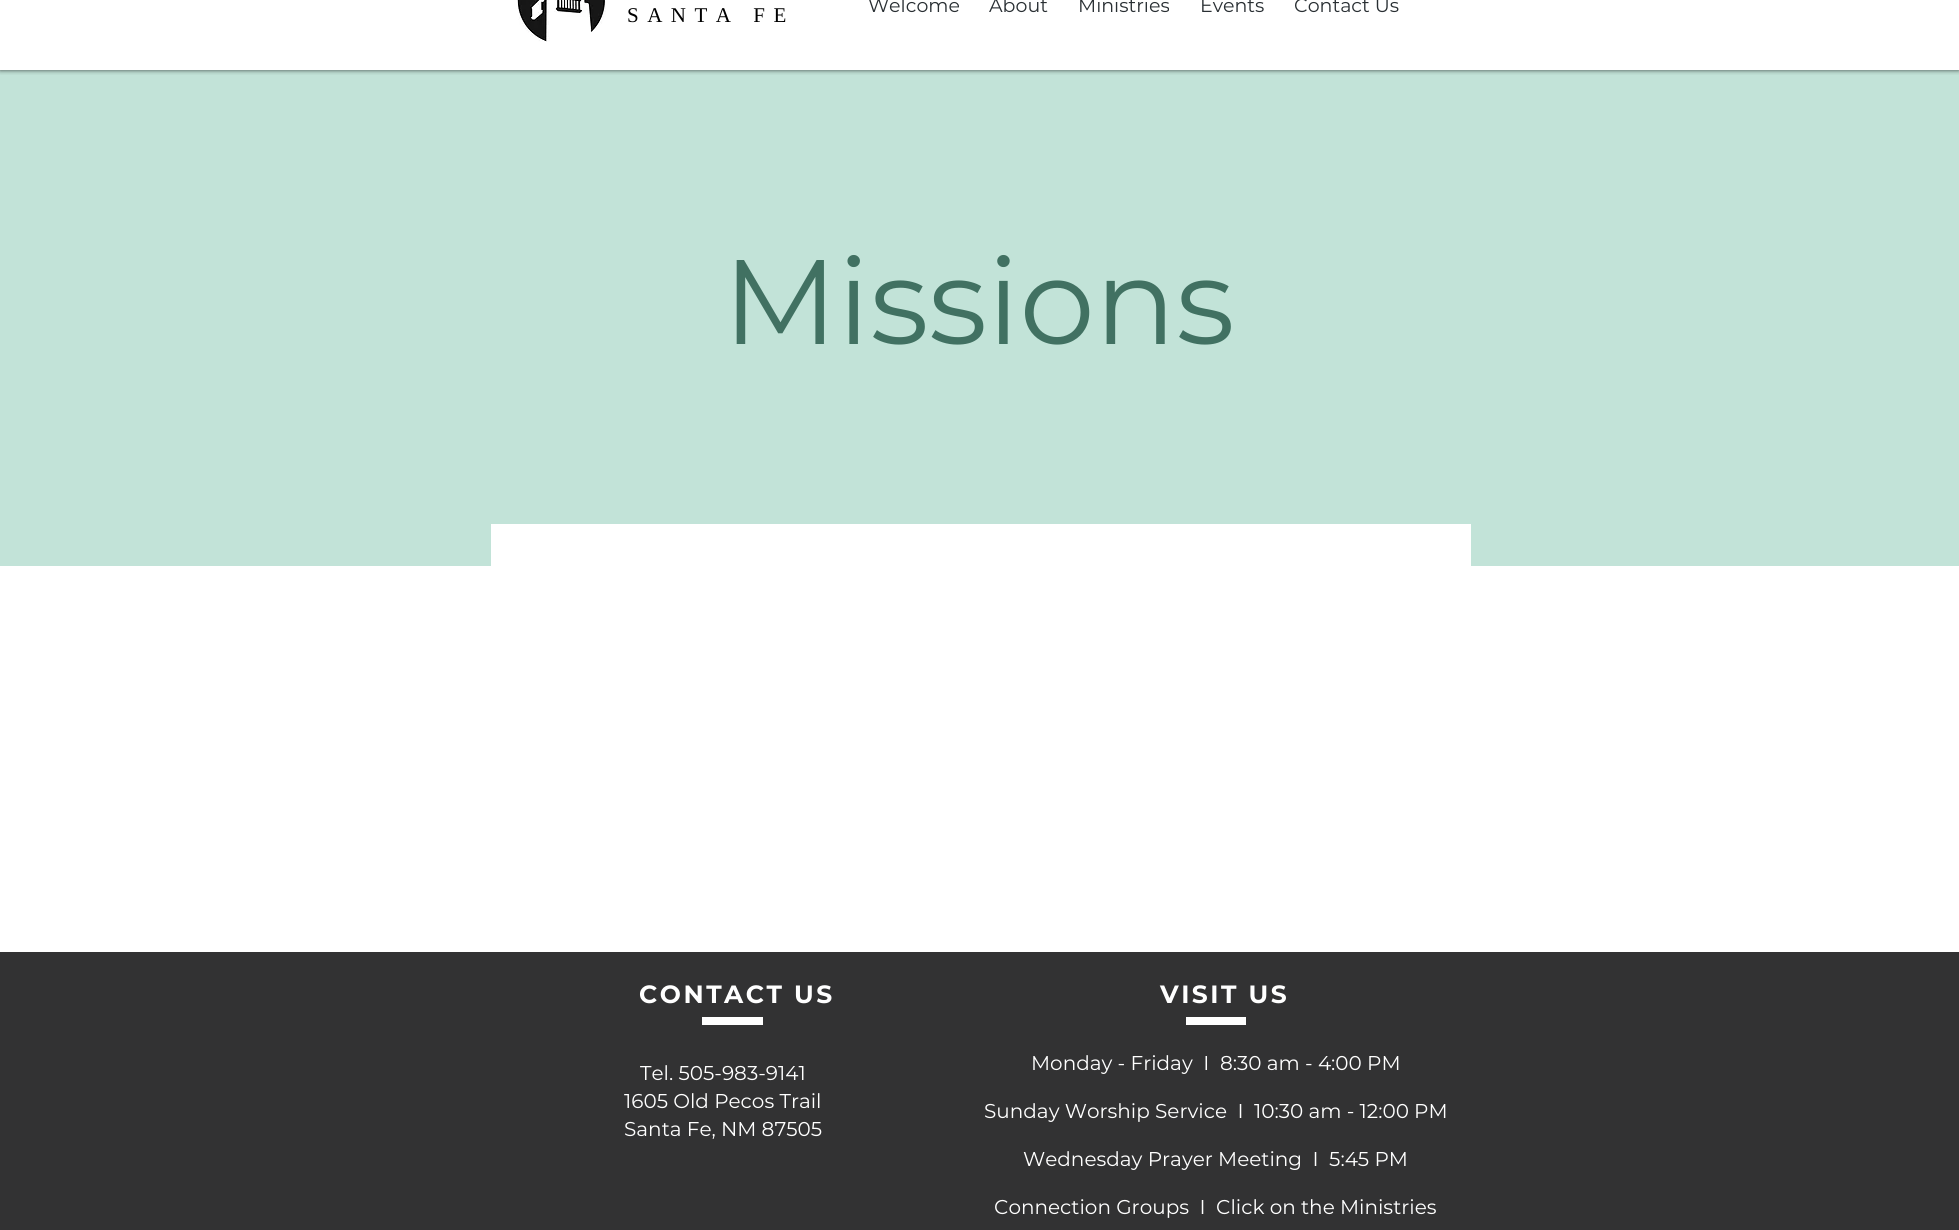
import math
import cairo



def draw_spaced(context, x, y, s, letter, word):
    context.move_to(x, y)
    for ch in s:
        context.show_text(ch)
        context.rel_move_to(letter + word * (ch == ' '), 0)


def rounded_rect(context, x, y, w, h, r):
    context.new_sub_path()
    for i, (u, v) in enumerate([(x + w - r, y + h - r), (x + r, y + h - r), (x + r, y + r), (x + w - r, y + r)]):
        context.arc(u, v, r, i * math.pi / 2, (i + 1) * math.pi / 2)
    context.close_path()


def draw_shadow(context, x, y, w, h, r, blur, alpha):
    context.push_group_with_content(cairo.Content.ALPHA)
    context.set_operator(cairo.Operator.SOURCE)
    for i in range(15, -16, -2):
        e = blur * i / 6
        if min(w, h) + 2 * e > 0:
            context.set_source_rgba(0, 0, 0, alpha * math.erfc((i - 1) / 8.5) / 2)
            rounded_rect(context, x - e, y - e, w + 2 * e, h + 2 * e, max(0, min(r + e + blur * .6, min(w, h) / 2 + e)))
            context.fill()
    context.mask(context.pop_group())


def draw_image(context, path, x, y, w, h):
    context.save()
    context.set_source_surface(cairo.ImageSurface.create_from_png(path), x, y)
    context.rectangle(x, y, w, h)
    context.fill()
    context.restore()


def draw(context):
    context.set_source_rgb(1, 1, 1)
    context.paint()
    context.set_source_rgb(194 / 255, 227 / 255, 216 / 255)
    context.rectangle(0, 70, 1959, 496)
    context.fill()
    context.save()
    context.rectangle(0, 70, 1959, 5)
    context.clip()
    context.set_source_rgb(0, 0, 0)
    draw_shadow(context, 0, -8, 1959, 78, 0, 2.5, 0.7)
    context.restore()
    draw_image(context, "images/1.png", 517, 0, 89, 42)
    context.set_source_rgb(1, 1, 1)
    context.rectangle(491, 524, 980, 42)
    context.fill()
    context.set_source_rgb(50 / 255, 50 / 255, 51 / 255)
    context.rectangle(0, 952, 1959, 278)
    context.fill()
    context.set_source_rgb(1, 1, 1)
    context.rectangle(702, 1017, 61, 8)
    context.fill()
    context.rectangle(1186, 1017, 60, 8)
    context.fill()
    context.select_font_face("Montserrat")
    context.set_font_size(19)
    context.set_source_rgb(41 / 255, 47 / 255, 51 / 255)
    context.move_to(868, 12)
    context.show_text("Welcome")
    context.move_to(989, 12)
    context.show_text("About")
    context.move_to(1078, 12)
    context.show_text("Ministries")
    context.move_to(1200, 12)
    context.show_text("Events")
    context.move_to(1294, 12)
    context.show_text("Contact Us")
    context.select_font_face("Liberation Serif")
    context.set_font_size(21)
    context.set_source_rgb(0, 0, 0)
    draw_spaced(context, 627, 22, "SANTA FE", 8.5, 0)
    context.select_font_face("Montserrat")
    context.set_font_size(120)
    context.set_source_rgb(65 / 255, 113 / 255, 98 / 255)
    context.move_to(723, 344)
    context.show_text("Missions")
    context.select_font_face("Montserrat", cairo.FontSlant.NORMAL, cairo.FontWeight.BOLD)
    context.set_font_size(25)
    context.set_source_rgb(1, 1, 1)
    draw_spaced(context, 639, 1003, "CONTACT US", 2.5, 0)
    context.select_font_face("Montserrat")
    context.set_font_size(20)
    context.move_to(640, 1080)
    context.show_text("Tel. 505-983-9141")
    context.move_to(624, 1108)
    context.show_text("1605 Old Pecos Trail")
    context.move_to(624, 1136)
    context.show_text("Santa Fe, NM 87505")
    context.select_font_face("Montserrat", cairo.FontSlant.NORMAL, cairo.FontWeight.BOLD)
    context.set_font_size(25)
    draw_spaced(context, 1160, 1003, "VISIT US", 2.5, 0)
    context.select_font_face("Montserrat")
    context.set_font_size(20)
    context.move_to(1031, 1070)
    context.show_text("Monday - Friday  I")
    context.move_to(1220, 1070)
    context.show_text("8:30 am - 4:00 PM")
    context.move_to(984, 1118)
    context.show_text("Sunday Worship Service  I  10:30 am - 12:00 PM")
    context.move_to(1023, 1166)
    context.show_text("Wednesday Prayer Meeting  I  5:45 PM")
    context.move_to(994, 1214)
    context.show_text("Connection Groups  I")
    context.move_to(1216, 1214)
    context.show_text("Click on the Ministries")


surface = cairo.ImageSurface(cairo.Format.RGB24, 1959, 1230)
context = cairo.Context(surface)
options = cairo.FontOptions()
options.set_hint_metrics(cairo.HintMetrics.OFF)
options.set_hint_style(cairo.HintStyle.NONE)
context.set_font_options(options)
context.set_miter_limit(4)
draw(context)
surface.write_to_png("out.png")
